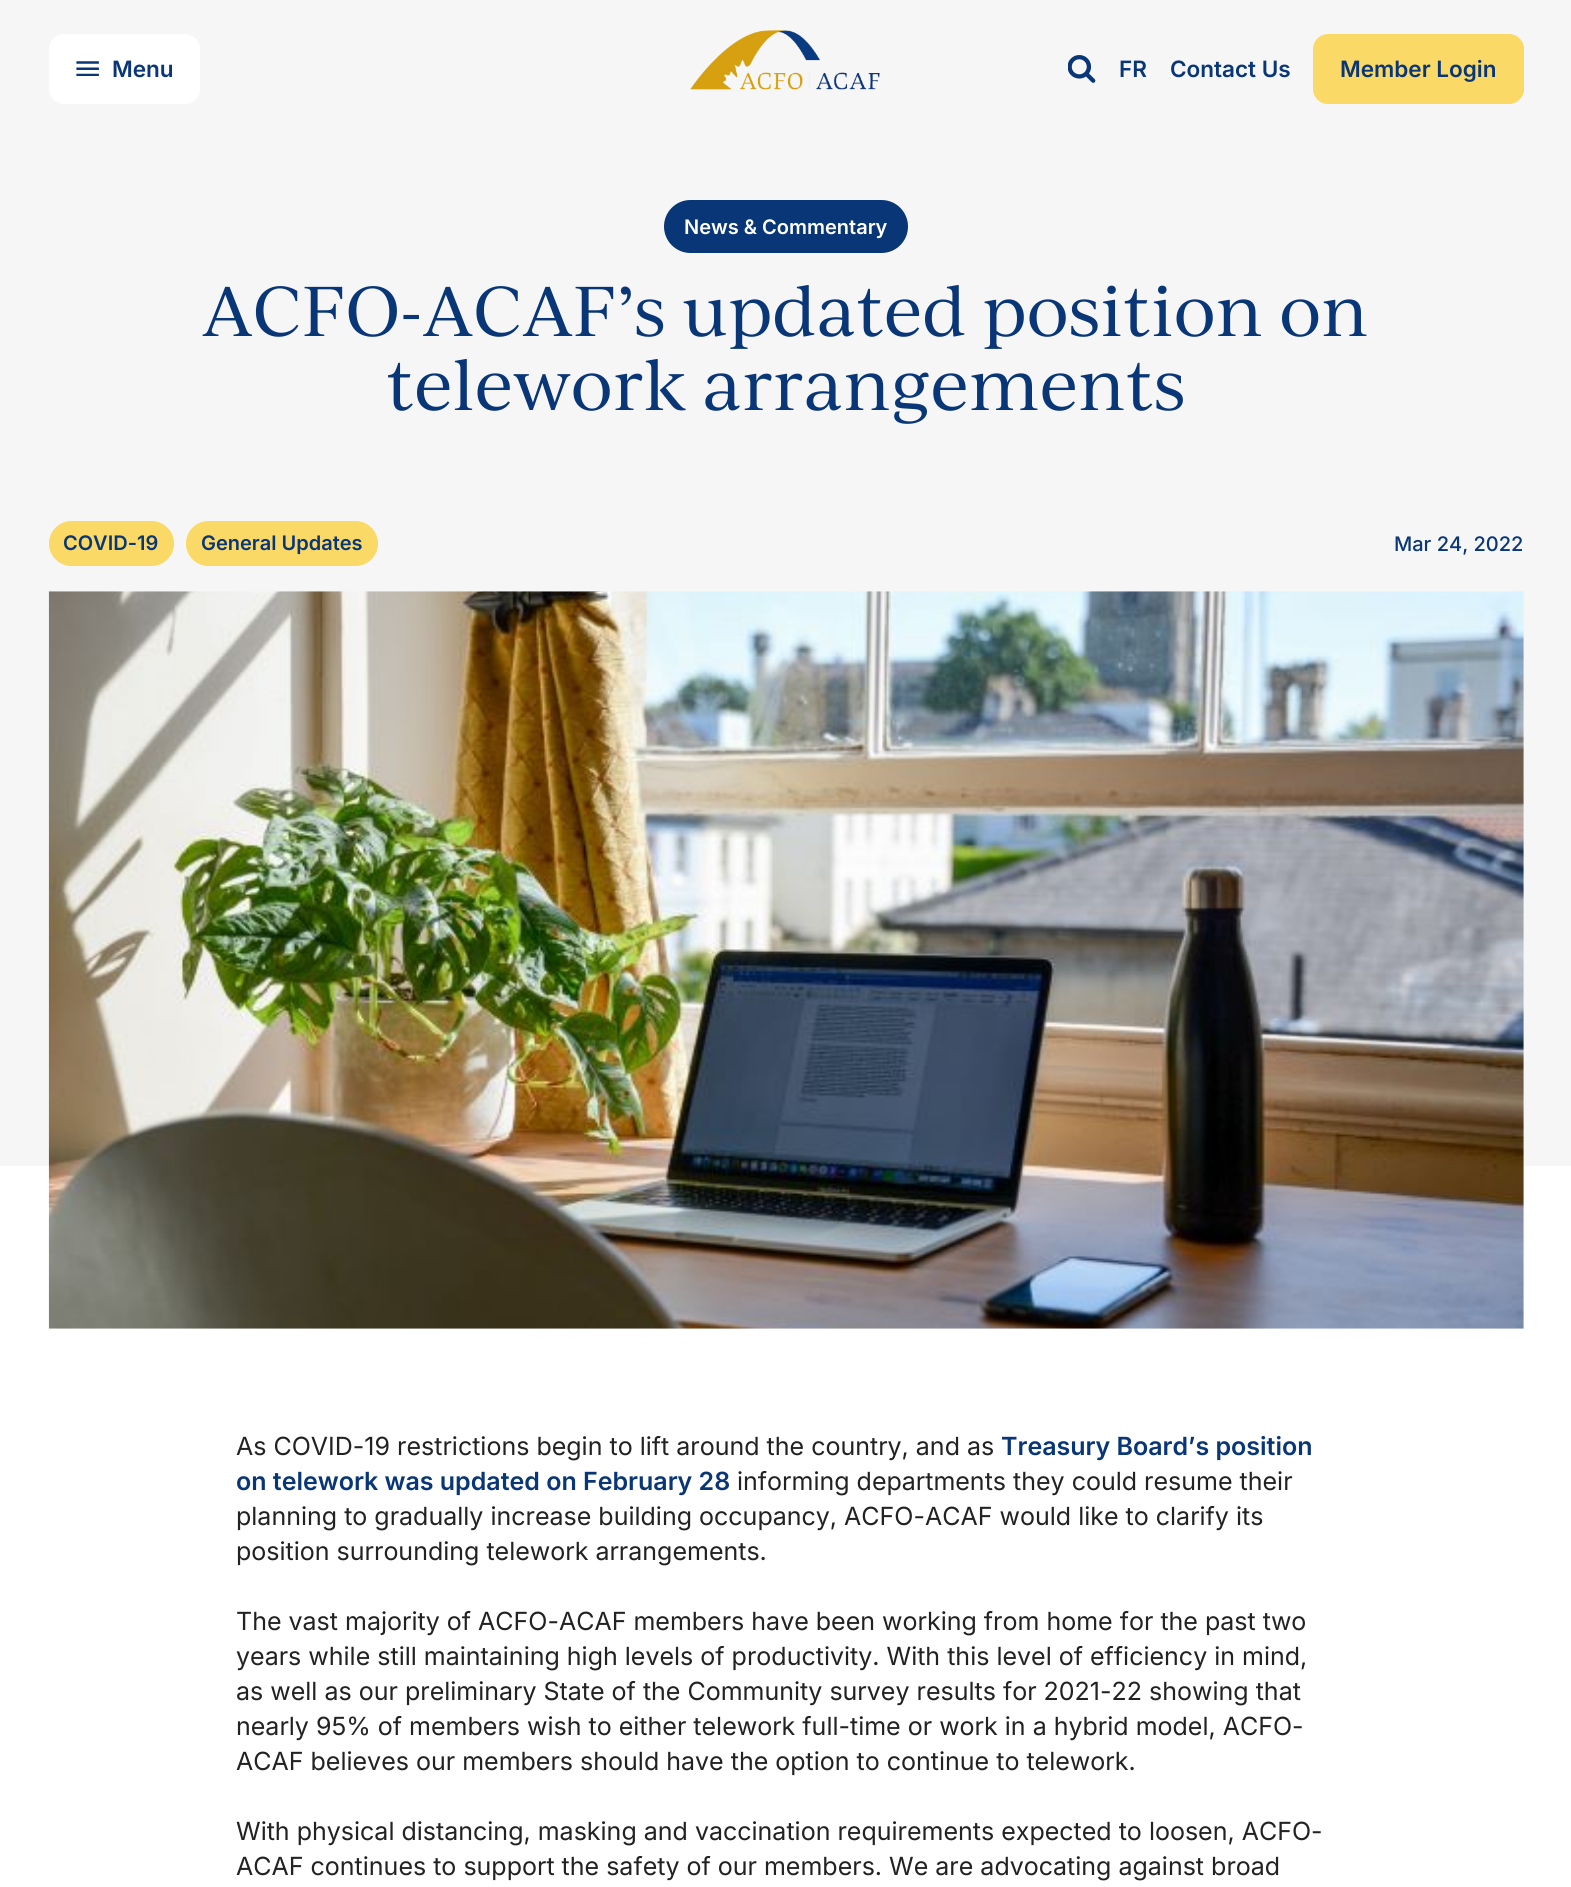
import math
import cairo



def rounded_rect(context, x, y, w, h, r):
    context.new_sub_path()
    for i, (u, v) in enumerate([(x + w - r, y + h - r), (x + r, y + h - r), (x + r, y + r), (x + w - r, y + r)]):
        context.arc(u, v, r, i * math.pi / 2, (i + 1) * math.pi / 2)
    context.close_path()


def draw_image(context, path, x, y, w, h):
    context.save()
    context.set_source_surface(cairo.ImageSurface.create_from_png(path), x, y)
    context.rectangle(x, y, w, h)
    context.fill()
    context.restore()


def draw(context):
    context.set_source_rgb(1, 1, 1)
    context.paint()
    context.set_source_rgb(246 / 255, 246 / 255, 246 / 255)
    context.rectangle(0, 0, 1571, 1166)
    context.fill()
    context.set_source_rgb(1, 1, 1)
    rounded_rect(context, 49, 34, 151, 70, 15)
    context.fill()
    draw_image(context, "images/1.png", 76, 61, 23, 15)
    draw_image(context, "images/2.png", 690, 30, 190, 60)
    draw_image(context, "images/3.png", 1068, 55, 28, 28)
    context.set_source_rgb(250 / 255, 217 / 255, 103 / 255)
    rounded_rect(context, 1313.5, 34.5, 210, 69, 14.5)
    context.fill_preserve()
    context.set_line_width(1)
    context.stroke()
    context.set_source_rgb(8 / 255, 54 / 255, 119 / 255)
    rounded_rect(context, 664, 200, 244, 53, 26.5)
    context.fill()
    context.set_source_rgb(250 / 255, 217 / 255, 103 / 255)
    rounded_rect(context, 49.5, 521.5, 124, 44, 22)
    context.fill_preserve()
    context.stroke()
    rounded_rect(context, 186.5, 521.5, 191, 44, 22)
    context.fill_preserve()
    context.stroke()
    draw_image(context, "images/4.png", 48, 591, 1476, 738)
    context.select_font_face("Inter SemiBold")
    context.set_font_size(22.5)
    context.set_source_rgb(8 / 255, 54 / 255, 119 / 255)
    context.move_to(112, 77)
    context.show_text("Menu")
    context.move_to(1119, 77)
    context.show_text("FR")
    context.move_to(1170, 77)
    context.show_text("Contact Us")
    context.move_to(1340, 77)
    context.show_text("Member Login")
    context.set_font_size(20)
    context.set_source_rgb(1, 1, 1)
    context.move_to(684, 234)
    context.show_text("News & Commentary")
    context.select_font_face("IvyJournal")
    context.set_font_size(67.5)
    context.set_source_rgb(8 / 255, 54 / 255, 119 / 255)
    context.move_to(202, 336)
    context.show_text("ACFO-ACAF’s updated position on")
    context.move_to(386, 410)
    context.show_text("telework arrangements")
    context.select_font_face("Inter SemiBold")
    context.set_font_size(20)
    context.move_to(63, 550)
    context.show_text("COVID-19")
    context.move_to(201, 550)
    context.show_text("General Updates")
    context.select_font_face("Inter Medium")
    context.move_to(1394, 551)
    context.show_text("Mar 24, 2022")
    context.select_font_face("Inter")
    context.set_font_size(25)
    context.set_source_rgb(34 / 255, 34 / 255, 34 / 255)
    context.move_to(236, 1455)
    context.show_text("As COVID-19 restrictions begin to lift around the country, and as")
    context.select_font_face("Inter SemiBold")
    context.set_source_rgb(8 / 255, 54 / 255, 119 / 255)
    context.move_to(1001, 1455)
    context.show_text("Treasury Board’s position")
    context.move_to(236, 1490)
    context.show_text("on telework was updated on February 28")
    context.select_font_face("Inter")
    context.set_source_rgb(34 / 255, 34 / 255, 34 / 255)
    context.move_to(737, 1490)
    context.show_text("informing departments they could resume their")
    context.move_to(236, 1525)
    context.show_text("planning to gradually increase building occupancy, ACFO-ACAF would like to clarify its")
    context.move_to(236, 1560)
    context.show_text("position surrounding telework arrangements.")
    context.move_to(236, 1630)
    context.show_text("The vast majority of ACFO-ACAF members have been working from home for the past two")
    context.move_to(236, 1665)
    context.show_text("years while still maintaining high levels of productivity. With this level of efficiency in mind,")
    context.move_to(236, 1700)
    context.show_text("as well as our preliminary State of the Community survey results for 2021-22 showing that")
    context.move_to(236, 1735)
    context.show_text("nearly 95% of members wish to either telework full-time or work in a hybrid model, ACFO-")
    context.move_to(236, 1770)
    context.show_text("ACAF believes our members should have the option to continue to telework.")
    context.move_to(236, 1840)
    context.show_text("With physical distancing, masking and vaccination requirements expected to loosen, ACFO-")
    context.move_to(236, 1875)
    context.show_text("ACAF continues to support the safety of our members. We are advocating against broad")


surface = cairo.ImageSurface(cairo.Format.RGB24, 1571, 1887)
context = cairo.Context(surface)
options = cairo.FontOptions()
options.set_hint_metrics(cairo.HintMetrics.OFF)
options.set_hint_style(cairo.HintStyle.NONE)
context.set_font_options(options)
context.set_miter_limit(4)
draw(context)
surface.write_to_png("out.png")
